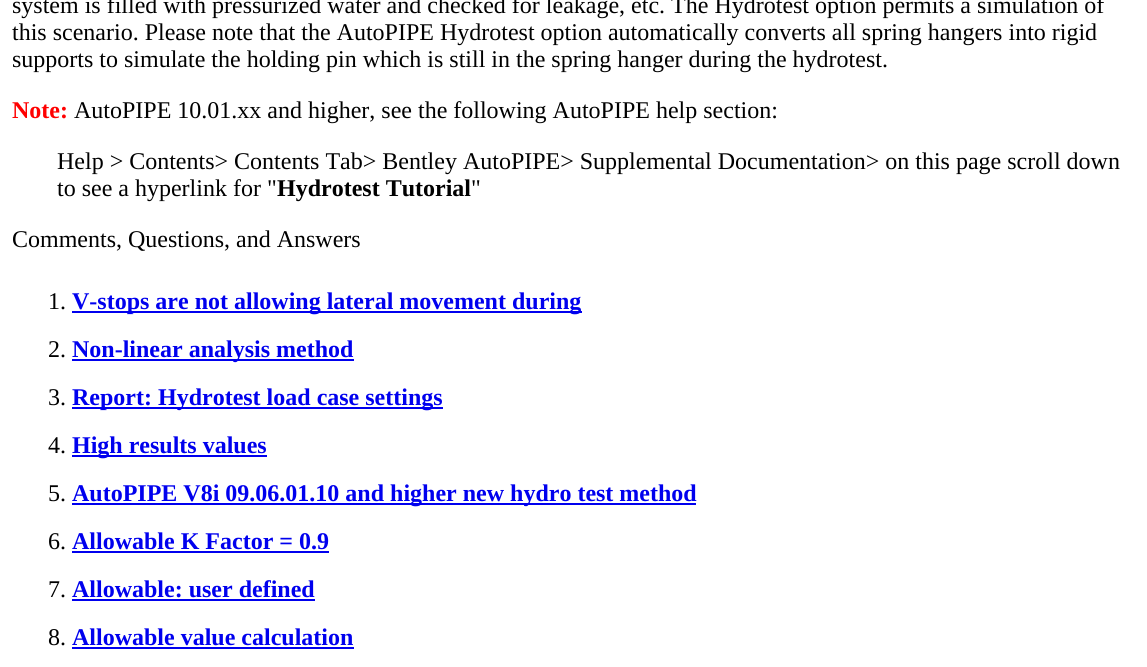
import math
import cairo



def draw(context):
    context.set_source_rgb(1, 1, 1)
    context.paint()
    context.set_source_rgb(0, 0, 238 / 255)
    context.rectangle(72, 311, 510, 2)
    context.fill()
    context.rectangle(72, 359, 282, 2)
    context.fill()
    context.rectangle(72, 407, 371, 2)
    context.fill()
    context.rectangle(72, 455, 195, 2)
    context.fill()
    context.rectangle(72, 503, 624, 2)
    context.fill()
    context.rectangle(72, 551, 257, 2)
    context.fill()
    context.rectangle(72, 599, 243, 2)
    context.fill()
    context.rectangle(72, 647, 282, 2)
    context.fill()
    context.select_font_face("Liberation Serif")
    context.set_font_size(24)
    context.set_source_rgb(0, 0, 0)
    context.move_to(12, 13)
    context.show_text("system is filled with pressurized water and checked for leakage, etc. The Hydrotest option permits a simulation of")
    context.move_to(12, 40)
    context.show_text("this scenario. Please note that the AutoPIPE Hydrotest option automatically converts all spring hangers into rigid")
    context.move_to(12, 67)
    context.show_text("supports to simulate the holding pin which is still in the spring hanger during the hydrotest.")
    context.select_font_face("Liberation Serif", cairo.FontSlant.NORMAL, cairo.FontWeight.BOLD)
    context.set_source_rgb(1, 0, 0)
    context.move_to(12, 118)
    context.show_text("Note:")
    context.select_font_face("Liberation Serif")
    context.set_source_rgb(0, 0, 0)
    context.move_to(74, 118)
    context.show_text("AutoPIPE 10.01.xx and higher, see the following AutoPIPE help section:")
    context.move_to(57, 169)
    context.show_text("Help > Contents> Contents Tab> Bentley AutoPIPE> Supplemental Documentation> on this page scroll down")
    context.move_to(57, 196)
    context.show_text("to see a hyperlink for \"")
    context.select_font_face("Liberation Serif", cairo.FontSlant.NORMAL, cairo.FontWeight.BOLD)
    context.move_to(277, 196)
    context.show_text("Hydrotest Tutorial")
    context.select_font_face("Liberation Serif")
    context.move_to(471, 196)
    context.show_text("\"")
    context.move_to(12, 247)
    context.show_text("Comments, Questions, and Answers")
    context.move_to(48, 309)
    context.show_text("1.")
    context.select_font_face("Liberation Serif", cairo.FontSlant.NORMAL, cairo.FontWeight.BOLD)
    context.set_source_rgb(0, 0, 238 / 255)
    context.move_to(72, 309)
    context.show_text("V-stops are not allowing lateral movement during")
    context.select_font_face("Liberation Serif")
    context.set_source_rgb(0, 0, 0)
    context.move_to(48, 357)
    context.show_text("2.")
    context.select_font_face("Liberation Serif", cairo.FontSlant.NORMAL, cairo.FontWeight.BOLD)
    context.set_source_rgb(0, 0, 238 / 255)
    context.move_to(72, 357)
    context.show_text("Non-linear analysis method")
    context.select_font_face("Liberation Serif")
    context.set_source_rgb(0, 0, 0)
    context.move_to(48, 405)
    context.show_text("3.")
    context.select_font_face("Liberation Serif", cairo.FontSlant.NORMAL, cairo.FontWeight.BOLD)
    context.set_source_rgb(0, 0, 238 / 255)
    context.move_to(72, 405)
    context.show_text("Report: Hydrotest load case settings")
    context.select_font_face("Liberation Serif")
    context.set_source_rgb(0, 0, 0)
    context.move_to(48, 453)
    context.show_text("4.")
    context.select_font_face("Liberation Serif", cairo.FontSlant.NORMAL, cairo.FontWeight.BOLD)
    context.set_source_rgb(0, 0, 238 / 255)
    context.move_to(72, 453)
    context.show_text("High results values")
    context.select_font_face("Liberation Serif")
    context.set_source_rgb(0, 0, 0)
    context.move_to(48, 501)
    context.show_text("5.")
    context.select_font_face("Liberation Serif", cairo.FontSlant.NORMAL, cairo.FontWeight.BOLD)
    context.set_source_rgb(0, 0, 238 / 255)
    context.move_to(72, 501)
    context.show_text("AutoPIPE V8i 09.06.01.10 and higher new hydro test method")
    context.select_font_face("Liberation Serif")
    context.set_source_rgb(0, 0, 0)
    context.move_to(48, 549)
    context.show_text("6.")
    context.select_font_face("Liberation Serif", cairo.FontSlant.NORMAL, cairo.FontWeight.BOLD)
    context.set_source_rgb(0, 0, 238 / 255)
    context.move_to(72, 549)
    context.show_text("Allowable K Factor = 0.9")
    context.select_font_face("Liberation Serif")
    context.set_source_rgb(0, 0, 0)
    context.move_to(48, 597)
    context.show_text("7.")
    context.select_font_face("Liberation Serif", cairo.FontSlant.NORMAL, cairo.FontWeight.BOLD)
    context.set_source_rgb(0, 0, 238 / 255)
    context.move_to(72, 597)
    context.show_text("Allowable: user defined")
    context.select_font_face("Liberation Serif")
    context.set_source_rgb(0, 0, 0)
    context.move_to(48, 645)
    context.show_text("8.")
    context.select_font_face("Liberation Serif", cairo.FontSlant.NORMAL, cairo.FontWeight.BOLD)
    context.set_source_rgb(0, 0, 238 / 255)
    context.move_to(72, 645)
    context.show_text("Allowable value calculation")


surface = cairo.ImageSurface(cairo.Format.RGB24, 1147, 667)
context = cairo.Context(surface)
options = cairo.FontOptions()
options.set_hint_metrics(cairo.HintMetrics.OFF)
options.set_hint_style(cairo.HintStyle.NONE)
context.set_font_options(options)
context.set_miter_limit(4)
draw(context)
surface.write_to_png("out.png")
